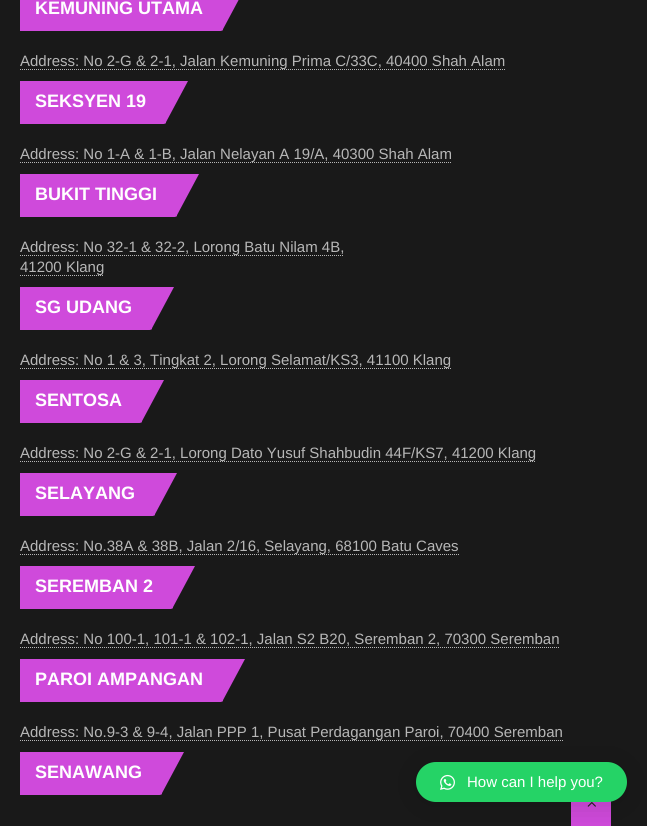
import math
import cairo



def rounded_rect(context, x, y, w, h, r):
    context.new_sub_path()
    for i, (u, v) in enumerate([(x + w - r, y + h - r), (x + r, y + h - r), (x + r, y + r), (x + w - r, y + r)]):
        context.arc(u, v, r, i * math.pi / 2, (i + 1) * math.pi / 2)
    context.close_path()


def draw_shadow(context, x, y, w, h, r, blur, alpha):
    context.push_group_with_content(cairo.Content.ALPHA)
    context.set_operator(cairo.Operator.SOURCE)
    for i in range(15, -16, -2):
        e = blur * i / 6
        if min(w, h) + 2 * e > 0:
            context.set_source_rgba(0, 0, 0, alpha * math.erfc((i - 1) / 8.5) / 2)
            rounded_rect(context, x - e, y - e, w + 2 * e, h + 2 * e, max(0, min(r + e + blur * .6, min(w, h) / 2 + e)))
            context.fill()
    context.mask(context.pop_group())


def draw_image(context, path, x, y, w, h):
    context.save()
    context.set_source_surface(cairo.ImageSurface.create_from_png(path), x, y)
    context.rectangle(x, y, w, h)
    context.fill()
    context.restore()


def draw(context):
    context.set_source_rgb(25 / 255, 25 / 255, 25 / 255)
    context.paint()
    context.set_source_rgb(207 / 255, 74 / 255, 219 / 255)
    context.new_path()
    context.move_to(20, -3)
    context.line_to(223, -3)
    context.line_to(223, 28.5)
    context.curve_to(223, 30, 222, 31, 220.5, 31)
    context.line_to(20, 31)
    context.close_path()
    context.fill()
    context.new_path()
    context.move_to(222, -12)
    context.line_to(245, -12)
    context.line_to(222, 31)
    context.close_path()
    context.fill()
    context.new_path()
    context.move_to(20, 69.5)
    context.line_to(505, 69.5)
    context.set_source_rgb(183 / 255, 183 / 255, 183 / 255)
    context.set_line_width(1)
    context.set_dash([1, 1])
    context.stroke()
    context.set_source_rgb(207 / 255, 74 / 255, 219 / 255)
    context.new_path()
    context.move_to(20, 81)
    context.line_to(166, 81)
    context.line_to(166, 121.5)
    context.curve_to(166, 123, 165, 124, 163.5, 124)
    context.line_to(20, 124)
    context.close_path()
    context.fill()
    context.new_path()
    context.move_to(165, 81)
    context.line_to(188, 81)
    context.line_to(165, 124)
    context.close_path()
    context.fill()
    context.new_path()
    context.move_to(20, 162.5)
    context.line_to(452, 162.5)
    context.set_source_rgb(183 / 255, 183 / 255, 183 / 255)
    context.stroke()
    context.set_source_rgb(207 / 255, 74 / 255, 219 / 255)
    context.new_path()
    context.move_to(20, 174)
    context.line_to(177, 174)
    context.line_to(177, 214.5)
    context.curve_to(177, 216, 176, 217, 174.5, 217)
    context.line_to(20, 217)
    context.close_path()
    context.fill()
    context.new_path()
    context.move_to(176, 174)
    context.line_to(199, 174)
    context.line_to(176, 217)
    context.close_path()
    context.fill()
    context.new_path()
    context.move_to(20, 255.5)
    context.line_to(344, 255.5)
    context.set_source_rgb(183 / 255, 183 / 255, 183 / 255)
    context.stroke()
    context.new_path()
    context.move_to(20, 275.5)
    context.line_to(104, 275.5)
    context.stroke()
    context.set_source_rgb(207 / 255, 74 / 255, 219 / 255)
    context.new_path()
    context.move_to(20, 287)
    context.line_to(152, 287)
    context.line_to(152, 327.5)
    context.curve_to(152, 329, 151, 330, 149.5, 330)
    context.line_to(20, 330)
    context.close_path()
    context.fill()
    context.new_path()
    context.move_to(151, 287)
    context.line_to(174, 287)
    context.line_to(151, 330)
    context.close_path()
    context.fill()
    context.new_path()
    context.move_to(20, 368.5)
    context.line_to(451, 368.5)
    context.set_source_rgb(183 / 255, 183 / 255, 183 / 255)
    context.stroke()
    context.set_source_rgb(207 / 255, 74 / 255, 219 / 255)
    context.new_path()
    context.move_to(20, 380)
    context.line_to(142, 380)
    context.line_to(142, 420.5)
    context.curve_to(142, 422, 141, 423, 139.5, 423)
    context.line_to(20, 423)
    context.close_path()
    context.fill()
    context.new_path()
    context.move_to(141, 380)
    context.line_to(164, 380)
    context.line_to(141, 423)
    context.close_path()
    context.fill()
    context.new_path()
    context.move_to(20, 461.5)
    context.line_to(536, 461.5)
    context.set_source_rgb(183 / 255, 183 / 255, 183 / 255)
    context.stroke()
    context.set_source_rgb(207 / 255, 74 / 255, 219 / 255)
    context.new_path()
    context.move_to(20, 473)
    context.line_to(155, 473)
    context.line_to(155, 513.5)
    context.curve_to(155, 515, 154, 516, 152.5, 516)
    context.line_to(20, 516)
    context.close_path()
    context.fill()
    context.new_path()
    context.move_to(154, 473)
    context.line_to(177, 473)
    context.line_to(154, 516)
    context.close_path()
    context.fill()
    context.new_path()
    context.move_to(20, 554.5)
    context.line_to(459, 554.5)
    context.set_source_rgb(183 / 255, 183 / 255, 183 / 255)
    context.stroke()
    context.set_source_rgb(207 / 255, 74 / 255, 219 / 255)
    context.new_path()
    context.move_to(20, 566)
    context.line_to(173, 566)
    context.line_to(173, 606.5)
    context.curve_to(173, 608, 172, 609, 170.5, 609)
    context.line_to(20, 609)
    context.close_path()
    context.fill()
    context.new_path()
    context.move_to(172, 566)
    context.line_to(195, 566)
    context.line_to(172, 609)
    context.close_path()
    context.fill()
    context.new_path()
    context.move_to(20, 647.5)
    context.line_to(560, 647.5)
    context.set_source_rgb(183 / 255, 183 / 255, 183 / 255)
    context.stroke()
    context.set_source_rgb(207 / 255, 74 / 255, 219 / 255)
    context.new_path()
    context.move_to(20, 659)
    context.line_to(223, 659)
    context.line_to(223, 699.5)
    context.curve_to(223, 701, 222, 702, 220.5, 702)
    context.line_to(20, 702)
    context.close_path()
    context.fill()
    context.new_path()
    context.move_to(222, 659)
    context.line_to(245, 659)
    context.line_to(222, 702)
    context.close_path()
    context.fill()
    context.new_path()
    context.move_to(20, 740.5)
    context.line_to(563, 740.5)
    context.set_source_rgb(183 / 255, 183 / 255, 183 / 255)
    context.stroke()
    context.set_source_rgb(207 / 255, 74 / 255, 219 / 255)
    context.new_path()
    context.move_to(20, 752)
    context.line_to(162, 752)
    context.line_to(162, 792.5)
    context.curve_to(162, 794, 161, 795, 159.5, 795)
    context.line_to(20, 795)
    context.close_path()
    context.fill()
    context.new_path()
    context.move_to(161, 752)
    context.line_to(184, 752)
    context.line_to(161, 795)
    context.close_path()
    context.fill()
    context.rectangle(571, 801, 40, 25)
    context.fill()
    draw_image(context, "images/2.png", 587, 802, 9, 5)
    context.set_source_rgb(0, 0, 0)
    draw_shadow(context, 416, 764, 211, 40, 20, 16, 0.16)
    context.set_source_rgb(37 / 255, 211 / 255, 102 / 255)
    rounded_rect(context, 416, 762, 211, 40, 20)
    context.fill()
    draw_image(context, "images/1.png", 440, 774, 15, 16)
    context.select_font_face("Liberation Sans", cairo.FontSlant.NORMAL, cairo.FontWeight.BOLD)
    context.set_font_size(18)
    context.set_source_rgb(1, 1, 1)
    context.move_to(35, 14)
    context.show_text("KEMUNING UTAMA")
    context.select_font_face("Liberation Sans")
    context.set_font_size(15)
    context.set_source_rgb(183 / 255, 183 / 255, 183 / 255)
    context.move_to(20, 66)
    context.show_text("Address: No 2-G & 2-1, Jalan Kemuning Prima C/33C, 40400 Shah Alam")
    context.select_font_face("Liberation Sans", cairo.FontSlant.NORMAL, cairo.FontWeight.BOLD)
    context.set_font_size(18)
    context.set_source_rgb(1, 1, 1)
    context.move_to(35, 107)
    context.show_text("SEKSYEN 19")
    context.select_font_face("Liberation Sans")
    context.set_font_size(15)
    context.set_source_rgb(183 / 255, 183 / 255, 183 / 255)
    context.move_to(20, 159)
    context.show_text("Address: No 1-A & 1-B, Jalan Nelayan A 19/A, 40300 Shah Alam")
    context.select_font_face("Liberation Sans", cairo.FontSlant.NORMAL, cairo.FontWeight.BOLD)
    context.set_font_size(18)
    context.set_source_rgb(1, 1, 1)
    context.move_to(35, 200)
    context.show_text("BUKIT TINGGI")
    context.select_font_face("Liberation Sans")
    context.set_font_size(15)
    context.set_source_rgb(183 / 255, 183 / 255, 183 / 255)
    context.move_to(20, 252)
    context.show_text("Address: No 32-1 & 32-2, Lorong Batu Nilam 4B,")
    context.move_to(20, 272)
    context.show_text("41200 Klang")
    context.select_font_face("Liberation Sans", cairo.FontSlant.NORMAL, cairo.FontWeight.BOLD)
    context.set_font_size(18)
    context.set_source_rgb(1, 1, 1)
    context.move_to(35, 313)
    context.show_text("SG UDANG")
    context.select_font_face("Liberation Sans")
    context.set_font_size(15)
    context.set_source_rgb(183 / 255, 183 / 255, 183 / 255)
    context.move_to(20, 365)
    context.show_text("Address: No 1 & 3, Tingkat 2, Lorong Selamat/KS3, 41100 Klang")
    context.select_font_face("Liberation Sans", cairo.FontSlant.NORMAL, cairo.FontWeight.BOLD)
    context.set_font_size(18)
    context.set_source_rgb(1, 1, 1)
    context.move_to(35, 406)
    context.show_text("SENTOSA")
    context.select_font_face("Liberation Sans")
    context.set_font_size(15)
    context.set_source_rgb(183 / 255, 183 / 255, 183 / 255)
    context.move_to(20, 458)
    context.show_text("Address: No 2-G & 2-1, Lorong Dato Yusuf Shahbudin 44F/KS7, 41200 Klang")
    context.select_font_face("Liberation Sans", cairo.FontSlant.NORMAL, cairo.FontWeight.BOLD)
    context.set_font_size(18)
    context.set_source_rgb(1, 1, 1)
    context.move_to(35, 499)
    context.show_text("SELAYANG")
    context.select_font_face("Liberation Sans")
    context.set_font_size(15)
    context.set_source_rgb(183 / 255, 183 / 255, 183 / 255)
    context.move_to(20, 551)
    context.show_text("Address: No.38A & 38B, Jalan 2/16, Selayang, 68100 Batu Caves")
    context.select_font_face("Liberation Sans", cairo.FontSlant.NORMAL, cairo.FontWeight.BOLD)
    context.set_font_size(18)
    context.set_source_rgb(1, 1, 1)
    context.move_to(35, 592)
    context.show_text("SEREMBAN 2")
    context.select_font_face("Liberation Sans")
    context.set_font_size(15)
    context.set_source_rgb(183 / 255, 183 / 255, 183 / 255)
    context.move_to(20, 644)
    context.show_text("Address: No 100-1, 101-1 & 102-1, Jalan S2 B20, Seremban 2, 70300 Seremban")
    context.select_font_face("Liberation Sans", cairo.FontSlant.NORMAL, cairo.FontWeight.BOLD)
    context.set_font_size(18)
    context.set_source_rgb(1, 1, 1)
    context.move_to(35, 685)
    context.show_text("PAROI AMPANGAN")
    context.select_font_face("Liberation Sans")
    context.set_font_size(15)
    context.set_source_rgb(183 / 255, 183 / 255, 183 / 255)
    context.move_to(20, 737)
    context.show_text("Address: No.9-3 & 9-4, Jalan PPP 1, Pusat Perdagangan Paroi, 70400 Seremban")
    context.select_font_face("Liberation Sans", cairo.FontSlant.NORMAL, cairo.FontWeight.BOLD)
    context.set_font_size(18)
    context.set_source_rgb(1, 1, 1)
    context.move_to(35, 778)
    context.show_text("SENAWANG")
    context.select_font_face("Liberation Sans")
    context.set_font_size(15)
    context.move_to(467, 787)
    context.show_text("How can I help you?")


surface = cairo.ImageSurface(cairo.Format.RGB24, 647, 826)
context = cairo.Context(surface)
options = cairo.FontOptions()
options.set_hint_metrics(cairo.HintMetrics.OFF)
options.set_hint_style(cairo.HintStyle.NONE)
context.set_font_options(options)
context.set_miter_limit(4)
draw(context)
surface.write_to_png("out.png")
